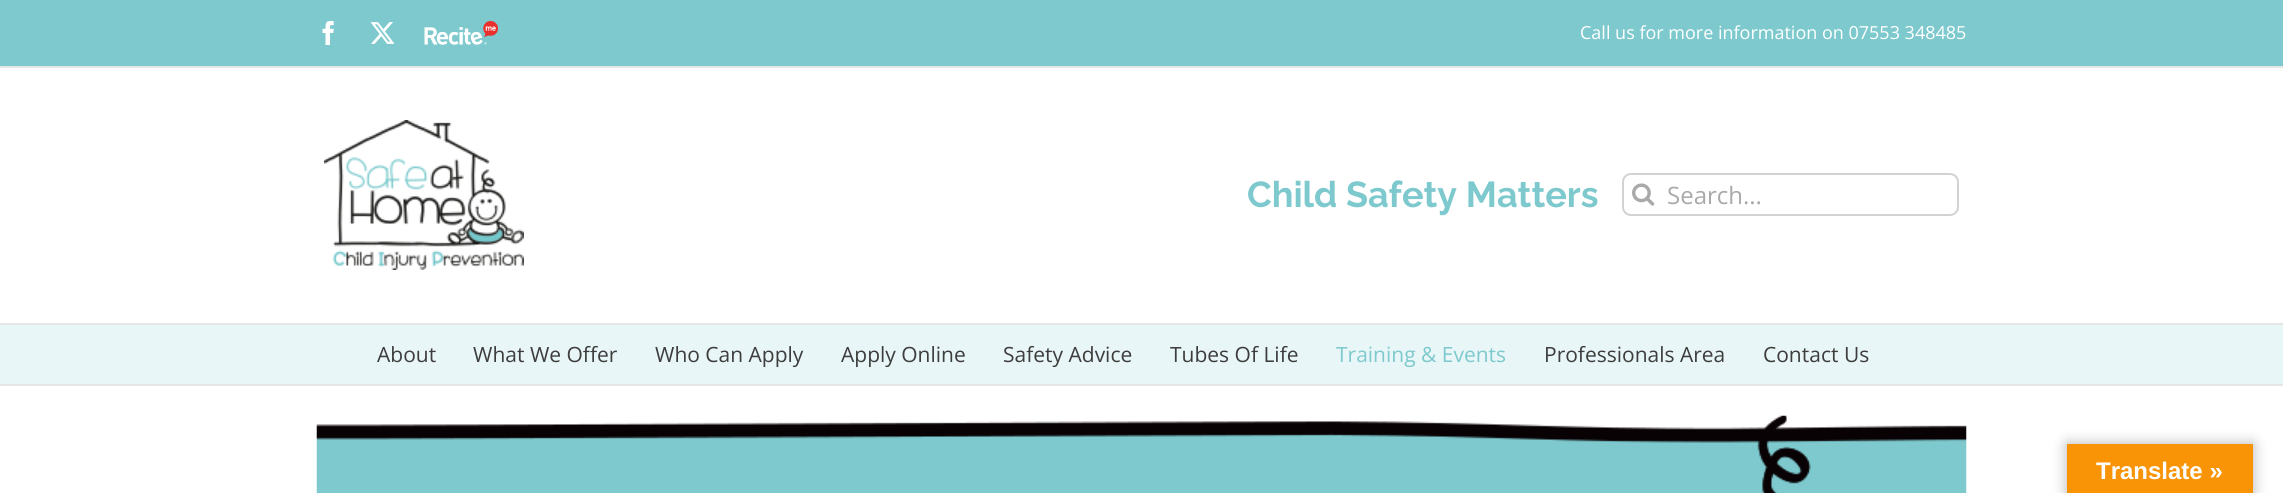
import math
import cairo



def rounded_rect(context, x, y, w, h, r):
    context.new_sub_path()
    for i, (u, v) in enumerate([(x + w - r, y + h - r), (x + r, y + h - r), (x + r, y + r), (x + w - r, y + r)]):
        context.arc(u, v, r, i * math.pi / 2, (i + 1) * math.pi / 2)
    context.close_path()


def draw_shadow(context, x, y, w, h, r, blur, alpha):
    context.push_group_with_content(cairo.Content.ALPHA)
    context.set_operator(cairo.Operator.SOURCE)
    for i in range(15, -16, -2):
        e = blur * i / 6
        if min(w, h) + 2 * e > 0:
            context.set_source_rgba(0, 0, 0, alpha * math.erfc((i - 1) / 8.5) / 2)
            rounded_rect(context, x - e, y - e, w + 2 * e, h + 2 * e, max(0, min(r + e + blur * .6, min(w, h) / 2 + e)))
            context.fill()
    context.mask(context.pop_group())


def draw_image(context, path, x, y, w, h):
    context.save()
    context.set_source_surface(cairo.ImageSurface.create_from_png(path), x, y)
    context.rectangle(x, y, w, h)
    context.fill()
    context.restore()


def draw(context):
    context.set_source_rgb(1, 1, 1)
    context.paint()
    context.set_source_rgb(125 / 255, 201 / 255, 205 / 255)
    context.rectangle(0, 0, 2283, 66)
    context.fill()
    context.set_source_rgb(229 / 255, 229 / 255, 229 / 255)
    context.rectangle(0, 66, 2283, 2)
    context.fill()
    draw_image(context, "images/1.png", 322, 21, 12, 24)
    draw_image(context, "images/2.png", 370, 22, 25, 22)
    draw_image(context, "images/3.png", 424, 21, 74, 24)
    context.rectangle(0, 323, 2283, 2)
    context.fill()
    draw_image(context, "images/4.png", 324, 120, 200, 150)
    rounded_rect(context, 1623, 174, 335, 41, 8)
    context.set_source_rgb(210 / 255, 210 / 255, 210 / 255)
    context.stroke()
    draw_image(context, "images/5.png", 1632, 183, 23, 23)
    context.set_source_rgb(233 / 255, 246 / 255, 247 / 255)
    context.rectangle(0, 325, 2283, 59)
    context.fill()
    context.set_source_rgb(229 / 255, 229 / 255, 229 / 255)
    context.rectangle(0, 384, 2283, 2)
    context.fill()
    draw_image(context, "images/6.png", 316, 415, 1651, 78)
    context.set_source_rgb(0, 0, 0)
    draw_shadow(context, 2067, 444, 186, 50, 0, 7, 0.3)
    context.set_source_rgb(248 / 255, 148 / 255, 6 / 255)
    context.rectangle(2067, 444, 186, 49)
    context.fill()
    context.select_font_face("Open Sans")
    context.set_font_size(18)
    context.set_source_rgb(1, 1, 1)
    context.move_to(1580, 39)
    context.show_text("Call us for more information on 07553 348485")
    context.select_font_face("Raleway", cairo.FontSlant.NORMAL, cairo.FontWeight.BOLD)
    context.set_font_size(36)
    context.set_source_rgb(125 / 255, 201 / 255, 205 / 255)
    context.move_to(1247, 207)
    context.show_text("Child Safety Matters")
    context.select_font_face("Open Sans")
    context.set_font_size(24)
    context.set_source_rgb(170 / 255, 169 / 255, 169 / 255)
    context.move_to(1667, 204)
    context.show_text("Search...")
    context.set_font_size(21)
    context.set_source_rgb(61 / 255, 61 / 255, 61 / 255)
    context.move_to(377, 362)
    context.show_text("About")
    context.move_to(473, 362)
    context.show_text("What We Offer")
    context.move_to(655, 362)
    context.show_text("Who Can Apply")
    context.move_to(841, 362)
    context.show_text("Apply Online")
    context.move_to(1003, 362)
    context.show_text("Safety Advice")
    context.move_to(1170, 362)
    context.show_text("Tubes Of Life")
    context.set_source_rgb(125 / 255, 201 / 255, 205 / 255)
    context.move_to(1336, 362)
    context.show_text("Training & Events")
    context.set_source_rgb(61 / 255, 61 / 255, 61 / 255)
    context.move_to(1544, 362)
    context.show_text("Professionals Area")
    context.move_to(1763, 362)
    context.show_text("Contact Us")
    context.select_font_face("Liberation Sans", cairo.FontSlant.NORMAL, cairo.FontWeight.BOLD)
    context.set_font_size(24)
    context.set_source_rgb(1, 1, 1)
    context.move_to(2096, 479)
    context.show_text("Translate »")


surface = cairo.ImageSurface(cairo.Format.RGB24, 2283, 493)
context = cairo.Context(surface)
options = cairo.FontOptions()
options.set_hint_metrics(cairo.HintMetrics.OFF)
options.set_hint_style(cairo.HintStyle.NONE)
context.set_font_options(options)
context.set_miter_limit(4)
draw(context)
surface.write_to_png("out.png")
